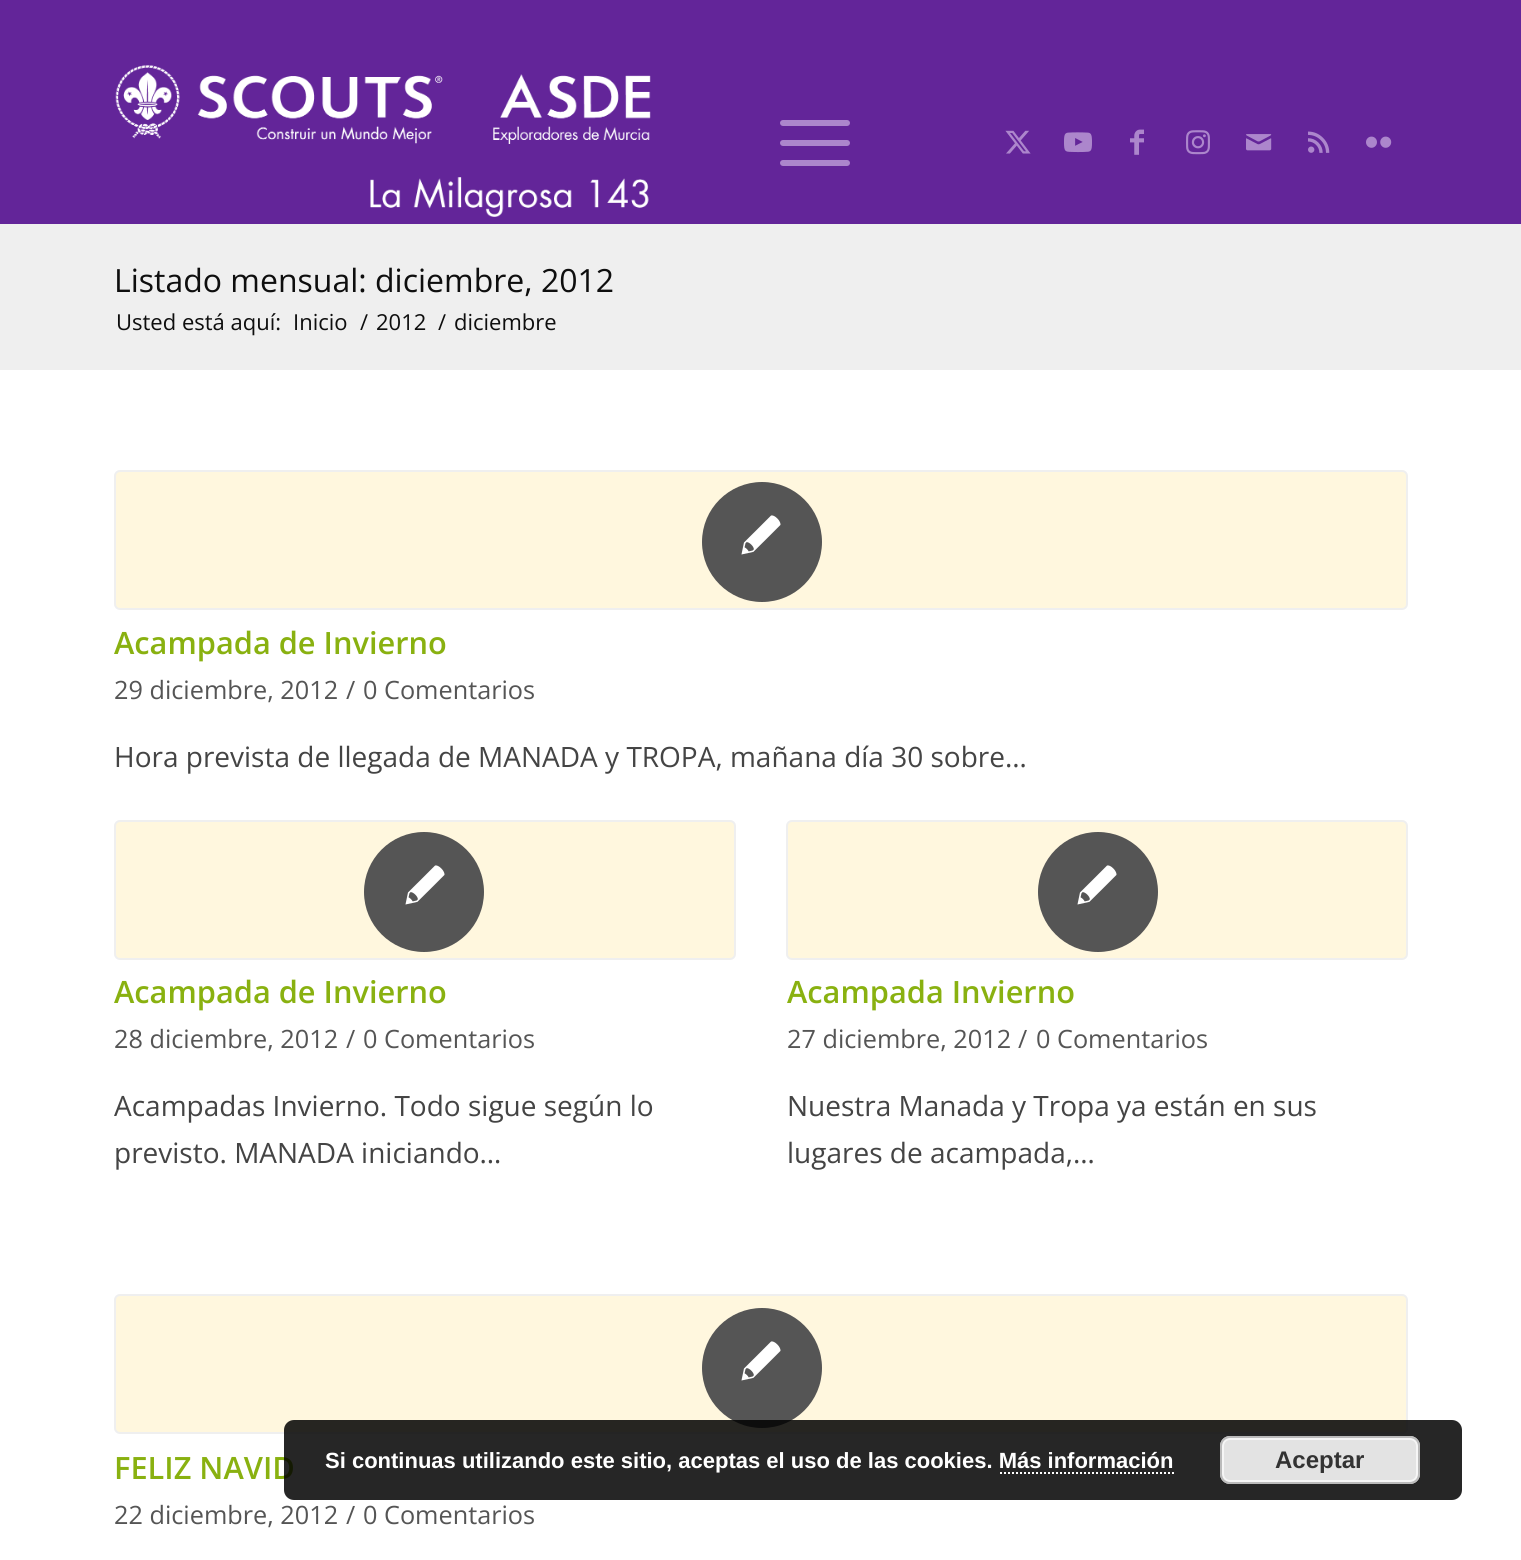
import math
import cairo



def rounded_rect(context, x, y, w, h, r):
    context.new_sub_path()
    for i, (u, v) in enumerate([(x + w - r, y + h - r), (x + r, y + h - r), (x + r, y + r), (x + w - r, y + r)]):
        context.arc(u, v, r, i * math.pi / 2, (i + 1) * math.pi / 2)
    context.close_path()


def draw_image(context, path, x, y, w, h):
    context.save()
    context.set_source_surface(cairo.ImageSurface.create_from_png(path), x, y)
    context.rectangle(x, y, w, h)
    context.fill()
    context.restore()


def draw(context):
    context.set_source_rgb(239 / 255, 239 / 255, 239 / 255)
    context.paint()
    context.set_source_rgb(99 / 255, 37 / 255, 153 / 255)
    context.rectangle(0, 0, 1521, 224)
    context.fill()
    draw_image(context, "images/1.png", 115, 65, 536, 152)
    context.set_source_rgb(172 / 255, 134 / 255, 204 / 255)
    rounded_rect(context, 780, 140, 70, 6, 3)
    context.fill()
    rounded_rect(context, 780, 120, 70, 6, 3)
    context.fill()
    rounded_rect(context, 780, 160, 70, 6, 3)
    context.fill()
    draw_image(context, "images/2.png", 1005, 130, 26, 24)
    draw_image(context, "images/3.png", 1064, 132, 28, 21)
    draw_image(context, "images/4.png", 1130, 129, 14, 26)
    draw_image(context, "images/5.png", 1186, 130, 24, 25)
    draw_image(context, "images/6.png", 1246, 134, 26, 17)
    draw_image(context, "images/7.png", 1308, 131, 22, 22)
    draw_image(context, "images/8.png", 1366, 136, 26, 12)
    context.set_source_rgb(1, 1, 1)
    context.rectangle(0, 370, 1521, 1190)
    context.fill()
    context.set_source_rgb(1, 247 / 255, 222 / 255)
    rounded_rect(context, 115, 471, 1292, 138, 5)
    context.fill_preserve()
    context.set_source_rgb(239 / 255, 239 / 255, 239 / 255)
    context.stroke()
    context.set_source_rgb(85 / 255, 85 / 255, 85 / 255)
    context.arc(762, 542, 60, 0, 2 * math.pi)
    context.fill()
    draw_image(context, "images/9.png", 741, 515, 40, 40)
    context.set_source_rgb(1, 247 / 255, 222 / 255)
    rounded_rect(context, 115, 821, 620, 138, 5)
    context.fill_preserve()
    context.set_source_rgb(239 / 255, 239 / 255, 239 / 255)
    context.stroke()
    context.set_source_rgb(85 / 255, 85 / 255, 85 / 255)
    context.arc(424, 892, 60, 0, 2 * math.pi)
    context.fill()
    draw_image(context, "images/9.png", 405, 865, 40, 40)
    context.set_source_rgb(1, 247 / 255, 222 / 255)
    rounded_rect(context, 787, 821, 620, 138, 5)
    context.fill_preserve()
    context.set_source_rgb(239 / 255, 239 / 255, 239 / 255)
    context.stroke()
    context.set_source_rgb(85 / 255, 85 / 255, 85 / 255)
    context.arc(1098, 892, 60, 0, 2 * math.pi)
    context.fill()
    draw_image(context, "images/9.png", 1077, 865, 40, 40)
    context.set_source_rgb(1, 247 / 255, 222 / 255)
    rounded_rect(context, 115, 1295, 1292, 138, 5)
    context.fill_preserve()
    context.set_source_rgb(239 / 255, 239 / 255, 239 / 255)
    context.stroke()
    context.set_source_rgb(85 / 255, 85 / 255, 85 / 255)
    context.arc(762, 1368, 60, 0, 2 * math.pi)
    context.fill()
    draw_image(context, "images/9.png", 741, 1341, 40, 40)
    context.select_font_face("Open Sans")
    context.set_font_size(32)
    context.set_source_rgb(14 / 255, 14 / 255, 14 / 255)
    context.move_to(114, 292)
    context.show_text("Listado mensual: diciembre, 2012")
    context.set_font_size(22)
    context.move_to(116, 330)
    context.show_text("Usted está aquí:")
    context.move_to(293, 330)
    context.show_text("Inicio")
    context.move_to(360, 330)
    context.show_text("/")
    context.move_to(376, 330)
    context.show_text("2012")
    context.move_to(438, 330)
    context.show_text("/")
    context.move_to(454, 330)
    context.show_text("diciembre")
    context.select_font_face("Open Sans SemiBold")
    context.set_font_size(30.75)
    context.set_source_rgb(137 / 255, 177 / 255, 16 / 255)
    context.move_to(114, 654)
    context.show_text("Acampada de Invierno")
    context.select_font_face("Open Sans")
    context.set_font_size(25.25)
    context.set_source_rgb(85 / 255, 85 / 255, 85 / 255)
    context.move_to(114, 699)
    context.show_text("29 diciembre, 2012")
    context.move_to(346, 699)
    context.show_text("/")
    context.move_to(363, 699)
    context.show_text("0 Comentarios")
    context.set_font_size(28)
    context.set_source_rgb(68 / 255, 68 / 255, 68 / 255)
    context.move_to(114, 767)
    context.show_text("Hora prevista de llegada de MANADA y TROPA, mañana día 30 sobre…")
    context.select_font_face("Open Sans SemiBold")
    context.set_font_size(30.75)
    context.set_source_rgb(137 / 255, 177 / 255, 16 / 255)
    context.move_to(114, 1003)
    context.show_text("Acampada de Invierno")
    context.select_font_face("Open Sans")
    context.set_font_size(25.25)
    context.set_source_rgb(85 / 255, 85 / 255, 85 / 255)
    context.move_to(114, 1048)
    context.show_text("28 diciembre, 2012")
    context.move_to(346, 1048)
    context.show_text("/")
    context.move_to(363, 1048)
    context.show_text("0 Comentarios")
    context.set_font_size(28)
    context.set_source_rgb(68 / 255, 68 / 255, 68 / 255)
    context.move_to(114, 1116)
    context.show_text("Acampadas Invierno. Todo sigue según lo")
    context.move_to(114, 1163)
    context.show_text("previsto. MANADA iniciando…")
    context.select_font_face("Open Sans SemiBold")
    context.set_font_size(30.75)
    context.set_source_rgb(137 / 255, 177 / 255, 16 / 255)
    context.move_to(787, 1003)
    context.show_text("Acampada Invierno")
    context.select_font_face("Open Sans")
    context.set_font_size(25.25)
    context.set_source_rgb(85 / 255, 85 / 255, 85 / 255)
    context.move_to(787, 1048)
    context.show_text("27 diciembre, 2012")
    context.move_to(1018, 1048)
    context.show_text("/")
    context.move_to(1036, 1048)
    context.show_text("0 Comentarios")
    context.set_font_size(28)
    context.set_source_rgb(68 / 255, 68 / 255, 68 / 255)
    context.move_to(787, 1116)
    context.show_text("Nuestra Manada y Tropa ya están en sus")
    context.move_to(787, 1163)
    context.show_text("lugares de acampada,…")
    context.select_font_face("Open Sans SemiBold")
    context.set_font_size(30.75)
    context.set_source_rgb(137 / 255, 177 / 255, 16 / 255)
    context.move_to(114, 1479)
    context.show_text("FELIZ NAVID")
    context.select_font_face("Open Sans")
    context.set_font_size(25.25)
    context.set_source_rgb(85 / 255, 85 / 255, 85 / 255)
    context.move_to(114, 1524)
    context.show_text("22 diciembre, 2012")
    context.move_to(346, 1524)
    context.show_text("/")
    context.move_to(363, 1524)
    context.show_text("0 Comentarios")
    context.set_source_rgba(0, 0, 0, 0.85)
    rounded_rect(context, 284, 1420, 1178, 80, 10)
    context.fill()
    context.select_font_face("Liberation Sans", cairo.FontSlant.NORMAL, cairo.FontWeight.BOLD)
    context.set_font_size(22)
    context.set_source_rgb(1, 1, 1)
    context.move_to(325, 1468)
    context.show_text("Si continuas utilizando este sitio, aceptas el uso de las cookies. Más información")
    context.set_source_rgb(227 / 255, 227 / 255, 227 / 255)
    rounded_rect(context, 1220, 1436, 200, 48, 10)
    context.fill()
    rounded_rect(context, 1223, 1439, 194, 42, 7)
    context.set_source_rgb(246 / 255, 246 / 255, 246 / 255)
    context.stroke()
    rounded_rect(context, 1221, 1437, 198, 46, 9)
    context.set_source_rgb(187 / 255, 187 / 255, 187 / 255)
    context.stroke()
    context.set_font_size(24)
    context.set_source_rgb(51 / 255, 51 / 255, 51 / 255)
    context.move_to(1275, 1468)
    context.show_text("Aceptar")
    context.new_path()
    context.move_to(1000, 1473)
    context.line_to(1174, 1473)
    context.set_source_rgb(1, 1, 1)
    context.set_dash([2, 2])
    context.stroke()


surface = cairo.ImageSurface(cairo.Format.RGB24, 1521, 1560)
context = cairo.Context(surface)
options = cairo.FontOptions()
options.set_hint_metrics(cairo.HintMetrics.OFF)
options.set_hint_style(cairo.HintStyle.NONE)
context.set_font_options(options)
context.set_miter_limit(4)
draw(context)
surface.write_to_png("out.png")
